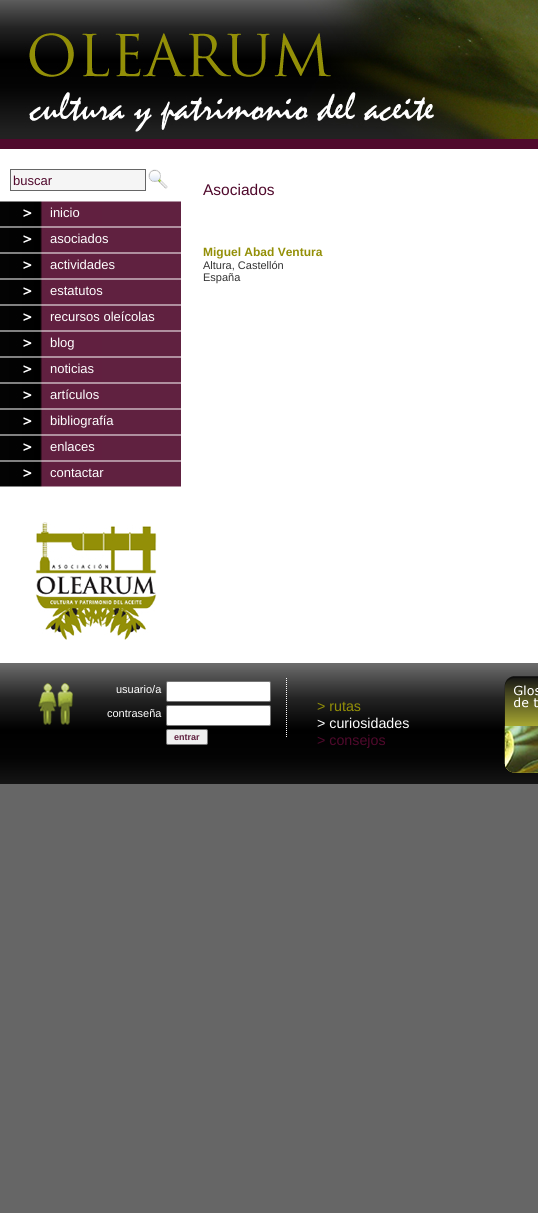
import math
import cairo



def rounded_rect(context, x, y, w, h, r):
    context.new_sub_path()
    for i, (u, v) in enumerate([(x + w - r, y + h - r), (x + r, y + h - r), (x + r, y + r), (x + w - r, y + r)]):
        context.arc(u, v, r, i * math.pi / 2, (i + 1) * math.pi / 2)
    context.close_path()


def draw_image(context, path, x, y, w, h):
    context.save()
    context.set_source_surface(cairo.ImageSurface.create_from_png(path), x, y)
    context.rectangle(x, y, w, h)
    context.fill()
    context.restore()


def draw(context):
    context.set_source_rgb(102 / 255, 102 / 255, 102 / 255)
    context.paint()
    draw_image(context, "images/1.png", 0, 0, 538, 139)
    context.set_source_rgb(80 / 255, 9 / 255, 44 / 255)
    context.rectangle(0, 139, 538, 10)
    context.fill()
    context.set_source_rgb(1, 1, 1)
    context.rectangle(0, 149, 538, 514)
    context.fill()
    context.set_source_rgb(245 / 255, 245 / 255, 245 / 255)
    context.rectangle(10.5, 169.5, 135, 21)
    context.fill_preserve()
    context.set_source_rgb(102 / 255, 102 / 255, 102 / 255)
    context.set_line_width(1)
    context.stroke()
    draw_image(context, "images/2.png", 148, 169, 20, 20)
    draw_image(context, "images/3.png", 0, 201, 181, 26)
    draw_image(context, "images/3.png", 0, 227, 181, 26)
    draw_image(context, "images/3.png", 0, 253, 181, 26)
    draw_image(context, "images/3.png", 0, 279, 181, 26)
    draw_image(context, "images/3.png", 0, 305, 181, 26)
    draw_image(context, "images/3.png", 0, 331, 181, 26)
    draw_image(context, "images/3.png", 0, 357, 181, 26)
    draw_image(context, "images/3.png", 0, 383, 181, 26)
    draw_image(context, "images/3.png", 0, 409, 181, 26)
    draw_image(context, "images/3.png", 0, 435, 181, 26)
    draw_image(context, "images/3.png", 0, 461, 181, 26)
    draw_image(context, "images/4.png", 35, 522, 122, 118)
    draw_image(context, "images/5.png", 0, 663, 538, 121)
    draw_image(context, "images/6.png", 38, 683, 35, 42)
    context.new_path()
    context.move_to(286.5, 678)
    context.line_to(286.5, 738)
    context.set_source_rgb(1, 1, 1)
    context.set_dash([1, 1])
    context.stroke()
    rounded_rect(context, 166.5, 681.5, 104, 20, 1.5)
    context.fill_preserve()
    context.set_source_rgb(118 / 255, 118 / 255, 118 / 255)
    context.set_dash([])
    context.stroke()
    context.set_source_rgb(1, 1, 1)
    rounded_rect(context, 166.5, 705.5, 104, 20, 1.5)
    context.fill_preserve()
    context.set_source_rgb(118 / 255, 118 / 255, 118 / 255)
    context.stroke()
    context.set_source_rgb(239 / 255, 239 / 255, 239 / 255)
    rounded_rect(context, 166.5, 729.5, 41, 15, 1.5)
    context.fill_preserve()
    context.set_source_rgb(118 / 255, 118 / 255, 118 / 255)
    context.stroke()
    draw_image(context, "images/7.png", 504, 676, 34, 97)
    context.select_font_face("Liberation Sans")
    context.set_font_size(13)
    context.set_source_rgb(80 / 255, 9 / 255, 44 / 255)
    context.move_to(13, 185)
    context.show_text("buscar")
    context.set_source_rgb(1, 1, 1)
    context.move_to(50, 217)
    context.show_text("inicio")
    context.move_to(50, 243)
    context.show_text("asociados")
    context.move_to(50, 269)
    context.show_text("actividades")
    context.move_to(50, 295)
    context.show_text("estatutos")
    context.move_to(50, 321)
    context.show_text("recursos oleícolas")
    context.move_to(50, 347)
    context.show_text("blog")
    context.move_to(50, 373)
    context.show_text("noticias")
    context.move_to(50, 399)
    context.show_text("artículos")
    context.move_to(50, 425)
    context.show_text("bibliografía")
    context.move_to(50, 451)
    context.show_text("enlaces")
    context.move_to(50, 477)
    context.show_text("contactar")
    context.set_font_size(15.5)
    context.set_source_rgb(80 / 255, 9 / 255, 44 / 255)
    context.move_to(203, 195)
    context.show_text("Asociados")
    context.select_font_face("Liberation Sans", cairo.FontSlant.NORMAL, cairo.FontWeight.BOLD)
    context.set_font_size(12)
    context.set_source_rgb(147 / 255, 143 / 255, 7 / 255)
    context.move_to(203, 256)
    context.show_text("Miguel Abad Ventura")
    context.select_font_face("Liberation Sans")
    context.set_font_size(11)
    context.set_source_rgb(51 / 255, 51 / 255, 51 / 255)
    context.move_to(203, 269)
    context.show_text("Altura, Castellón")
    context.move_to(203, 281)
    context.show_text("España")
    context.set_source_rgb(1, 1, 1)
    context.move_to(116, 693)
    context.show_text("usuario/a")
    context.move_to(107, 717)
    context.show_text("contraseña")
    context.select_font_face("Liberation Sans", cairo.FontSlant.NORMAL, cairo.FontWeight.BOLD)
    context.set_font_size(9)
    context.set_source_rgb(96 / 255, 33 / 255, 64 / 255)
    context.move_to(174, 740)
    context.show_text("entrar")
    context.select_font_face("Liberation Sans")
    context.set_font_size(14.25)
    context.set_source_rgb(147 / 255, 143 / 255, 7 / 255)
    context.move_to(317, 711)
    context.show_text("> rutas")
    context.set_source_rgb(1, 1, 1)
    context.move_to(317, 728)
    context.show_text("> curiosidades")
    context.set_source_rgb(80 / 255, 9 / 255, 44 / 255)
    context.move_to(317, 745)
    context.show_text("> consejos")


surface = cairo.ImageSurface(cairo.Format.RGB24, 538, 1213)
context = cairo.Context(surface)
options = cairo.FontOptions()
options.set_hint_metrics(cairo.HintMetrics.OFF)
options.set_hint_style(cairo.HintStyle.NONE)
context.set_font_options(options)
context.set_miter_limit(4)
draw(context)
surface.write_to_png("out.png")
